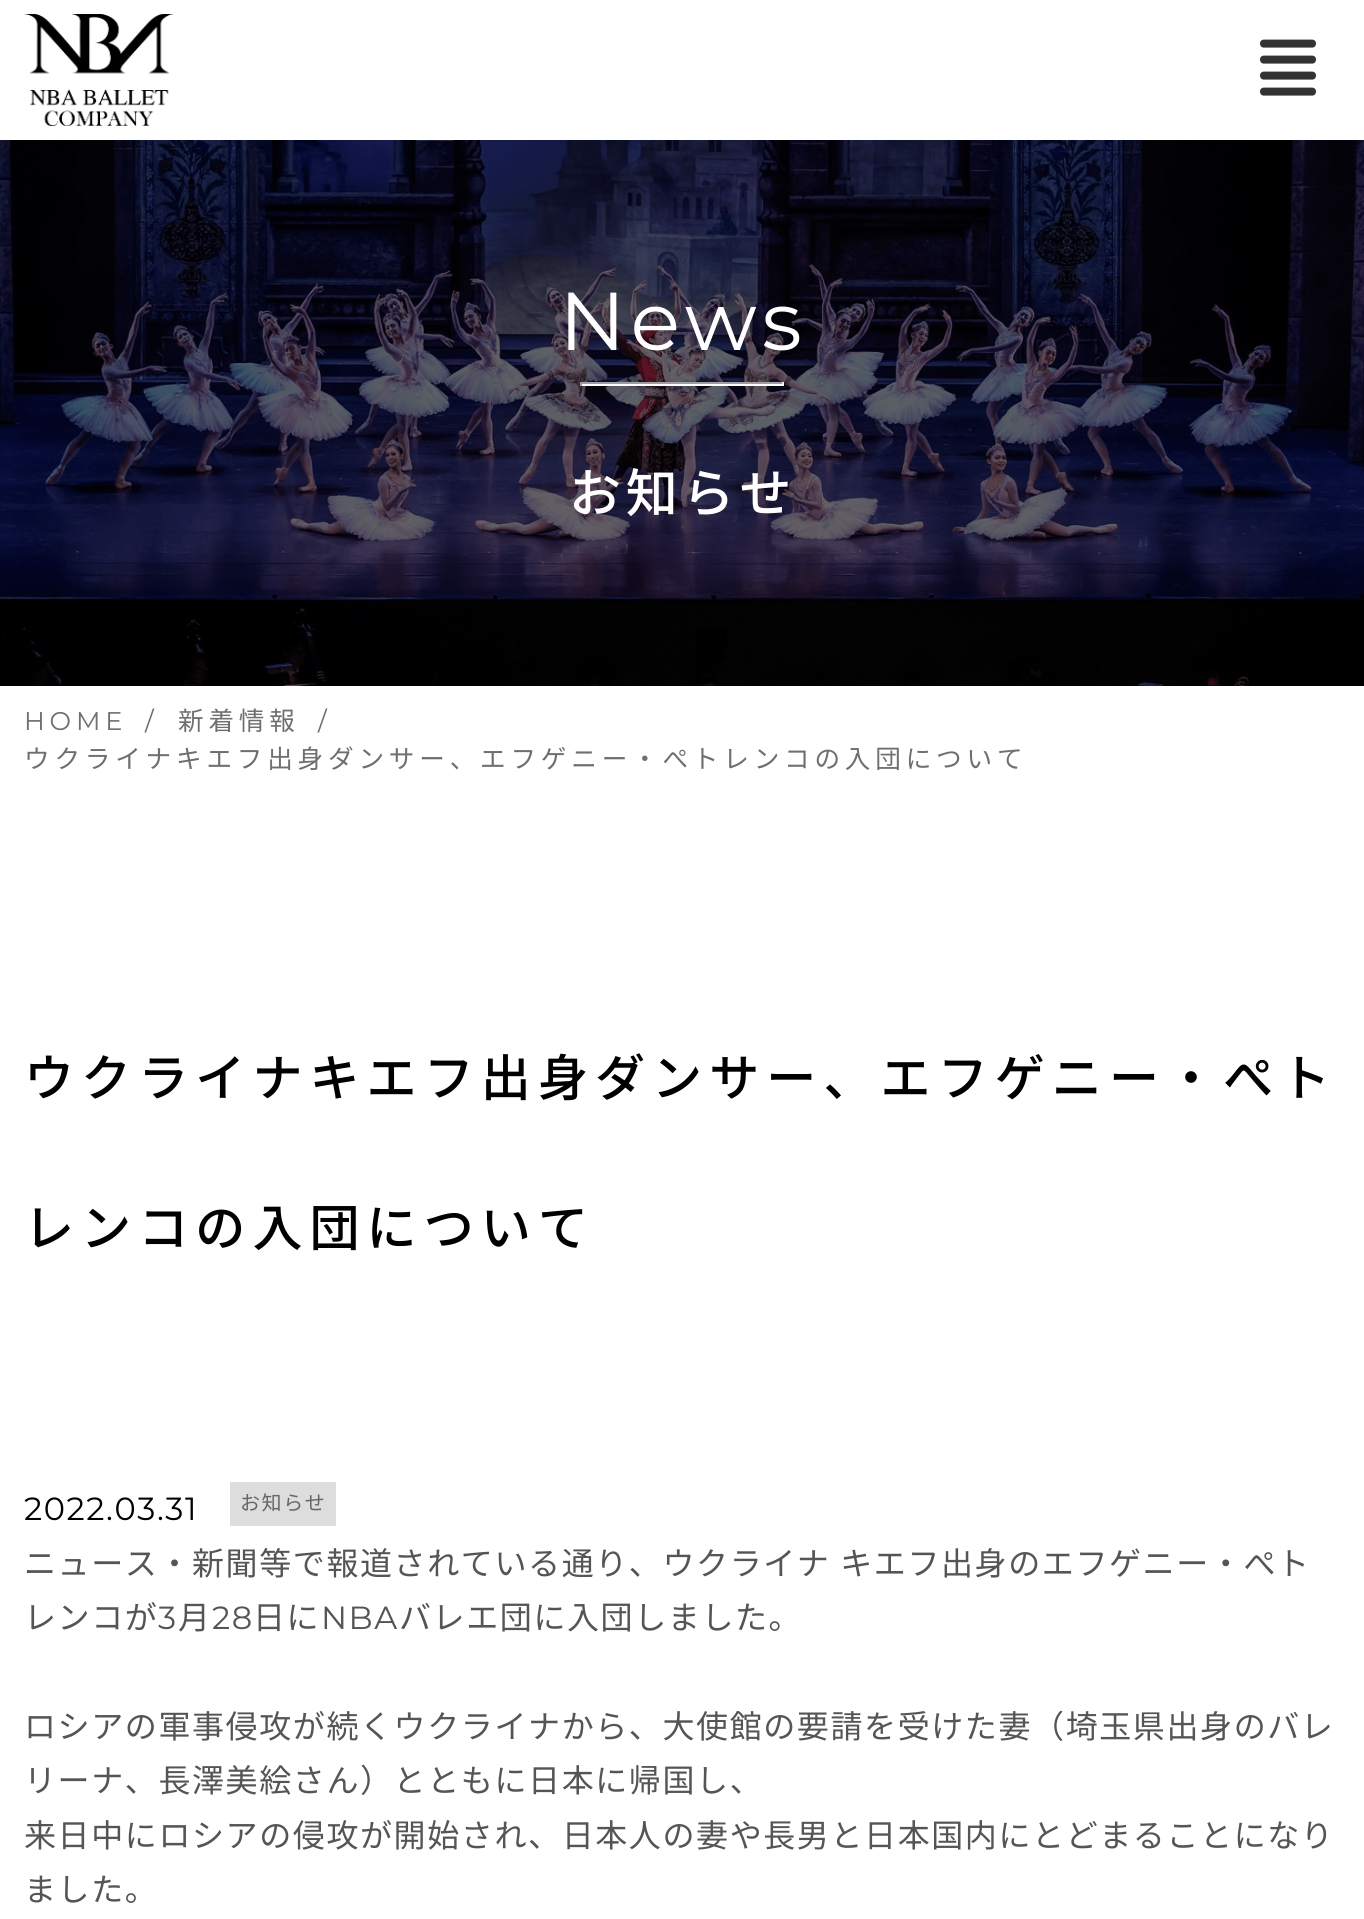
import math
import cairo



def draw_spaced(context, x, y, s, letter, word):
    context.move_to(x, y)
    for ch in s:
        context.show_text(ch)
        context.rel_move_to(letter + word * (ch == ' '), 0)


def draw_image(context, path, x, y, w, h):
    context.save()
    context.set_source_surface(cairo.ImageSurface.create_from_png(path), x, y)
    context.rectangle(x, y, w, h)
    context.fill()
    context.restore()


def draw(context):
    context.set_source_rgb(1, 1, 1)
    context.paint()
    draw_image(context, "images/1.png", 24, 14, 150, 112)
    draw_image(context, "images/2.png", 1260, 39, 56, 57)
    context.set_source_rgb(0, 0, 0)
    context.rectangle(0, 140, 1364, 546)
    context.fill()
    draw_image(context, "images/3.png", 0, 140, 1364, 546)
    context.set_source_rgb(159 / 255, 159 / 255, 159 / 255)
    context.rectangle(580, 382, 204, 2)
    context.fill()
    context.set_source_rgb(238 / 255, 238 / 255, 238 / 255)
    context.rectangle(782, 382, 2, 4)
    context.fill()
    context.set_source_rgb(1, 1, 1)
    context.rectangle(580, 384, 204, 2)
    context.fill()
    context.set_source_rgb(159 / 255, 159 / 255, 159 / 255)
    context.rectangle(580, 382, 2, 4)
    context.fill()
    context.set_source_rgb(221 / 255, 221 / 255, 221 / 255)
    context.rectangle(230, 1482, 106, 44)
    context.fill()
    context.select_font_face("Montserrat")
    context.set_font_size(82)
    context.set_source_rgb(1, 1, 1)
    draw_spaced(context, 559, 350, "News", 4.8, 0)
    context.select_font_face("Noto Sans JP Medium")
    context.set_font_size(52)
    draw_spaced(context, 569, 512, "お知らせ", 4.8, 0)
    context.select_font_face("Montserrat")
    context.set_font_size(25.6)
    context.set_source_rgb(111 / 255, 111 / 255, 111 / 255)
    draw_spaced(context, 24, 730, "HOME", 4.8, 0)
    draw_spaced(context, 145, 730, "/", 4.8, 0)
    context.select_font_face("Noto Sans JP")
    draw_spaced(context, 178, 730, "新着情報", 4.8, 0)
    context.select_font_face("Montserrat")
    draw_spaced(context, 318, 730, "/", 4.8, 0)
    context.select_font_face("Noto Sans JP")
    draw_spaced(context, 24, 768, "ウクライナキエフ出身ダンサー、エフゲニー・ぺトレンコの入団について", 4.8, 0)
    context.select_font_face("Noto Sans JP Medium")
    context.set_font_size(50)
    context.set_source_rgb(0, 0, 0)
    draw_spaced(context, 24, 1096, "ウクライナキエフ出身ダンサー、エフゲニー・ぺト", 7.1, 0)
    draw_spaced(context, 24, 1246, "レンコの入団について", 7.1, 0)
    context.select_font_face("Montserrat")
    context.set_font_size(32)
    draw_spaced(context, 24, 1520, "2022.03.31", 1.6, 0)
    context.select_font_face("Noto Sans JP")
    context.set_font_size(20)
    context.set_source_rgb(102 / 255, 102 / 255, 102 / 255)
    draw_spaced(context, 240, 1510, "お知らせ", 1.6, 0)
    context.set_font_size(32)
    context.set_source_rgb(85 / 255, 85 / 255, 85 / 255)
    draw_spaced(context, 24, 1575, "ニュース・新聞等で報道されている通り、ウクライナ キエフ出身のエフゲニー・ぺト", 1.6, 1)
    draw_spaced(context, 24, 1629, "レンコが", 1.6, 0)
    context.select_font_face("Montserrat")
    draw_spaced(context, 158, 1629, "3", 1.6, 0)
    context.select_font_face("Noto Sans JP")
    draw_spaced(context, 178, 1629, "月", 1.6, 0)
    context.select_font_face("Montserrat")
    draw_spaced(context, 212, 1629, "28", 1.6, 0)
    context.select_font_face("Noto Sans JP")
    draw_spaced(context, 253, 1629, "日に", 1.6, 0)
    context.select_font_face("Montserrat")
    draw_spaced(context, 321, 1629, "NBA", 1.6, 0)
    context.select_font_face("Noto Sans JP")
    draw_spaced(context, 399, 1629, "バレエ団に入団しました。", 1.6, 0)
    draw_spaced(context, 24, 1738, "ロシアの軍事侵攻が続くウクライナから、大使館の要請を受けた妻（埼玉県出身のバレ", 1.6, 0)
    draw_spaced(context, 24, 1792, "リーナ、長澤美絵さん）とともに日本に帰国し、", 1.6, 0)
    draw_spaced(context, 24, 1847, "来日中にロシアの侵攻が開始され、日本人の妻や長男と日本国内にとどまることになり", 1.6, 0)
    draw_spaced(context, 24, 1901, "ました。", 1.6, 0)


surface = cairo.ImageSurface(cairo.Format.RGB24, 1364, 1919)
context = cairo.Context(surface)
options = cairo.FontOptions()
options.set_hint_metrics(cairo.HintMetrics.OFF)
options.set_hint_style(cairo.HintStyle.NONE)
context.set_font_options(options)
context.set_miter_limit(4)
draw(context)
surface.write_to_png("out.png")
